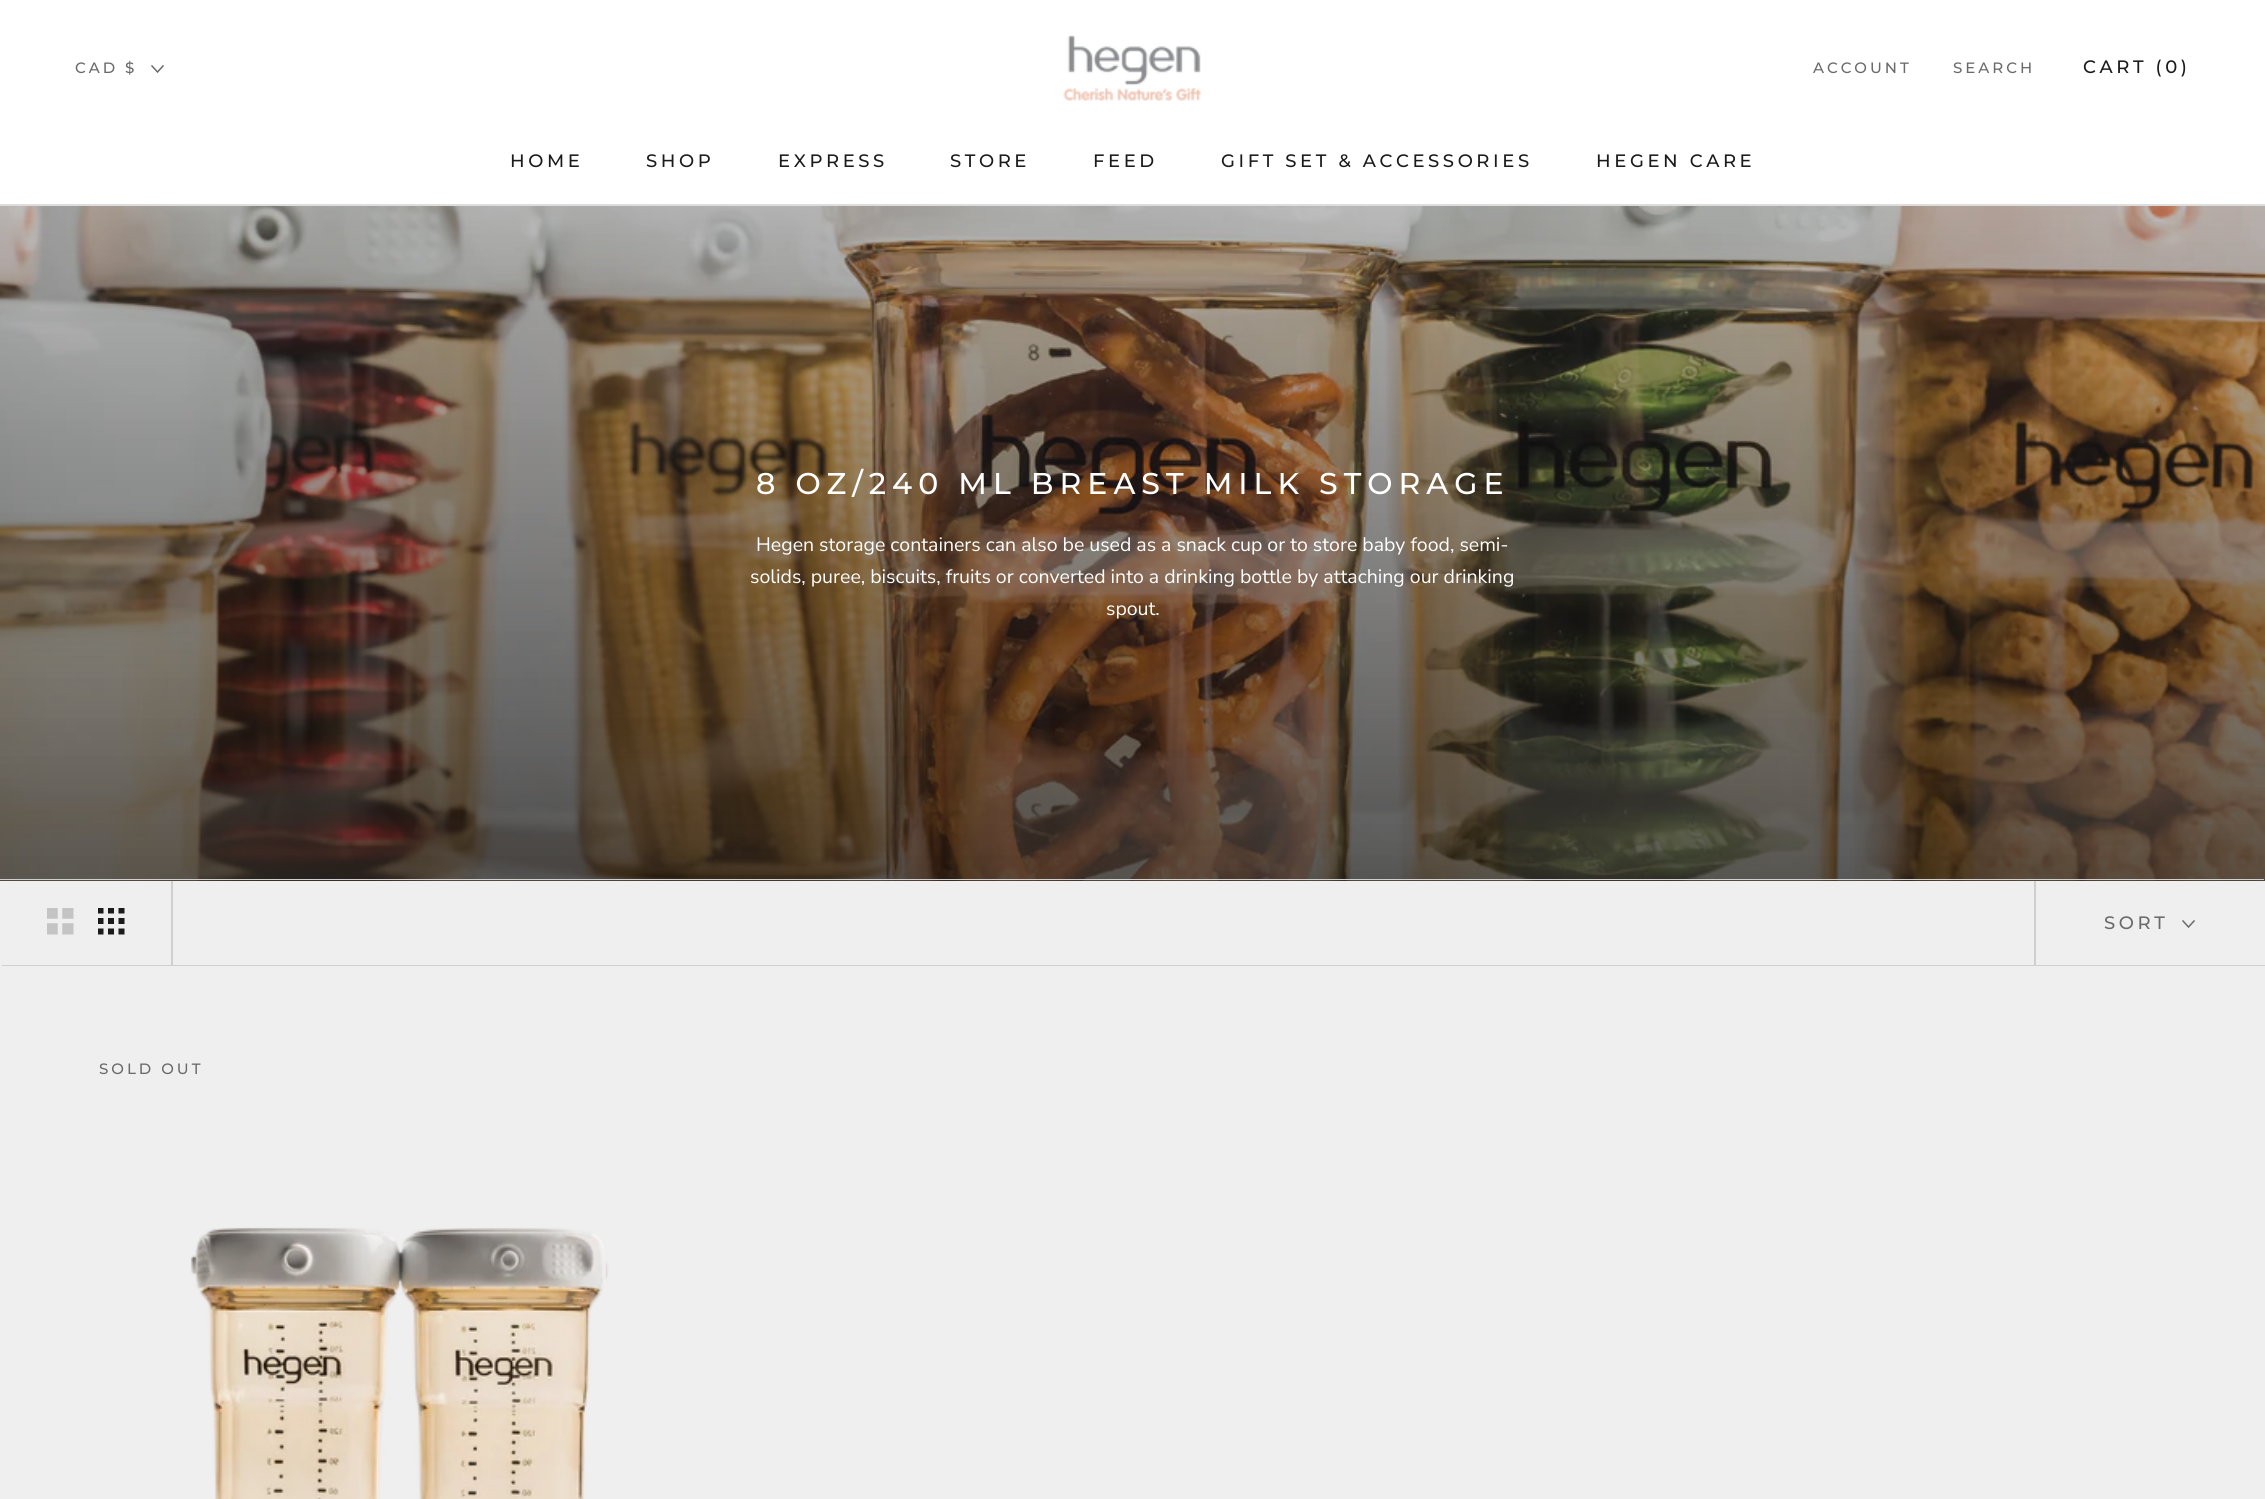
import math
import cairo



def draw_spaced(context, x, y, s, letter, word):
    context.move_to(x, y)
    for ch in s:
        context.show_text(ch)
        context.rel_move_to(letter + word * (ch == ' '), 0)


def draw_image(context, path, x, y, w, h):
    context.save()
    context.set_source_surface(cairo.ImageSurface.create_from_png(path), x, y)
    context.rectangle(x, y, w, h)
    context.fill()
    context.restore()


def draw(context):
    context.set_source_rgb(239 / 255, 239 / 255, 239 / 255)
    context.paint()
    context.set_source_rgb(1, 1, 1)
    context.rectangle(0, 0, 2265, 204)
    context.fill()
    context.set_source_rgb(221 / 255, 221 / 255, 221 / 255)
    context.rectangle(0, 204, 2265, 2)
    context.fill()
    draw_image(context, "images/1.png", 1063, 35, 139, 66)
    context.new_path()
    context.move_to(163, 66)
    context.line_to(157.5, 72)
    context.line_to(152, 66)
    context.set_source_rgb(106 / 255, 106 / 255, 106 / 255)
    context.set_line_width(1.5)
    context.set_line_cap(cairo.LineCap.SQUARE)
    context.stroke()
    context.set_source_rgb(194 / 255, 168 / 255, 149 / 255)
    context.rectangle(0, 880, 2265, 1)
    context.fill()
    draw_image(context, "images/2.png", 0, 206, 2265, 675)
    gradient = cairo.LinearGradient(1133, 881, 1133, 0)
    gradient.add_color_stop_rgba(0, 4 / 255, 4 / 255, 4 / 255, 0.65)
    gradient.add_color_stop_rgba(1, 54 / 255, 54 / 255, 54 / 255, 0.2)
    context.set_source(gradient)
    context.rectangle(0, 206, 2265, 675)
    context.fill()
    context.set_source_rgb(207 / 255, 207 / 255, 207 / 255)
    context.new_path()
    context.move_to(-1, 879)
    context.line_to(-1, 963)
    context.line_to(0, 963)
    context.line_to(0, 880)
    context.line_to(2264, 880)
    context.line_to(2264, 879)
    context.close_path()
    context.fill()
    context.new_path()
    context.move_to(2, 964)
    context.line_to(2, 966)
    context.line_to(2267, 966)
    context.line_to(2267, 882)
    context.line_to(2265, 882)
    context.line_to(2265, 964)
    context.close_path()
    context.fill()
    context.set_source_rgb(239 / 255, 239 / 255, 239 / 255)
    context.rectangle(2, 964, 2263, 1)
    context.fill()
    context.set_source_rgb(207 / 255, 207 / 255, 207 / 255)
    context.rectangle(171, 881, 2, 84)
    context.fill()
    draw_image(context, "images/3.png", 47, 908, 27, 27)
    draw_image(context, "images/4.png", 98, 908, 27, 27)
    context.rectangle(2034, 881, 2, 84)
    context.fill()
    context.new_path()
    context.move_to(2194, 921)
    context.line_to(2188.5, 927)
    context.line_to(2183, 921)
    context.set_source_rgb(106 / 255, 106 / 255, 106 / 255)
    context.stroke()
    draw_image(context, "images/5.png", 190, 1227, 419, 272)
    context.select_font_face("Montserrat Medium")
    context.set_font_size(15)
    draw_spaced(context, 1813, 73, "ACCOUNT", 3, 0)
    draw_spaced(context, 1953, 73, "SEARCH", 3, 0)
    context.set_font_size(18)
    context.set_source_rgb(28 / 255, 27 / 255, 27 / 255)
    draw_spaced(context, 2083, 73, "CART (0)", 3.6, 0)
    context.set_font_size(15)
    context.set_source_rgb(106 / 255, 106 / 255, 106 / 255)
    draw_spaced(context, 75, 73, "CAD $", 3, 0)
    context.set_font_size(18)
    context.set_source_rgb(28 / 255, 27 / 255, 27 / 255)
    draw_spaced(context, 510, 167, "HOME", 3.6, 0)
    draw_spaced(context, 646, 167, "SHOP", 3.6, 0)
    draw_spaced(context, 778, 167, "EXPRESS", 3.6, 0)
    draw_spaced(context, 950, 167, "STORE", 3.6, 0)
    draw_spaced(context, 1093, 167, "FEED", 3.6, 0)
    draw_spaced(context, 1221, 167, "GIFT SET & ACCESSORIES", 3.6, 0)
    draw_spaced(context, 1596, 167, "HEGEN CARE", 3.6, 0)
    context.set_font_size(30)
    context.set_source_rgb(1, 1, 1)
    draw_spaced(context, 756, 494, "8 OZ/240 ML BREAST MILK STORAGE", 6, 0)
    context.select_font_face("Nunito Sans")
    context.set_font_size(19.5)
    context.move_to(756, 551)
    context.show_text("Hegen storage containers can also be used as a snack cup or to store baby food, semi-")
    context.move_to(750, 583)
    context.show_text("solids, puree, biscuits, fruits or converted into a drinking bottle by attaching our drinking")
    context.move_to(1106, 615)
    context.show_text("spout.")
    context.select_font_face("Montserrat Medium")
    context.set_font_size(18)
    context.set_source_rgb(106 / 255, 106 / 255, 106 / 255)
    draw_spaced(context, 2104, 929, "SORT", 3.6, 0)
    context.set_font_size(15)
    draw_spaced(context, 99, 1074, "SOLD OUT", 3, 0)


surface = cairo.ImageSurface(cairo.Format.RGB24, 2265, 1499)
context = cairo.Context(surface)
options = cairo.FontOptions()
options.set_hint_metrics(cairo.HintMetrics.OFF)
options.set_hint_style(cairo.HintStyle.NONE)
context.set_font_options(options)
context.set_miter_limit(4)
draw(context)
surface.write_to_png("out.png")
